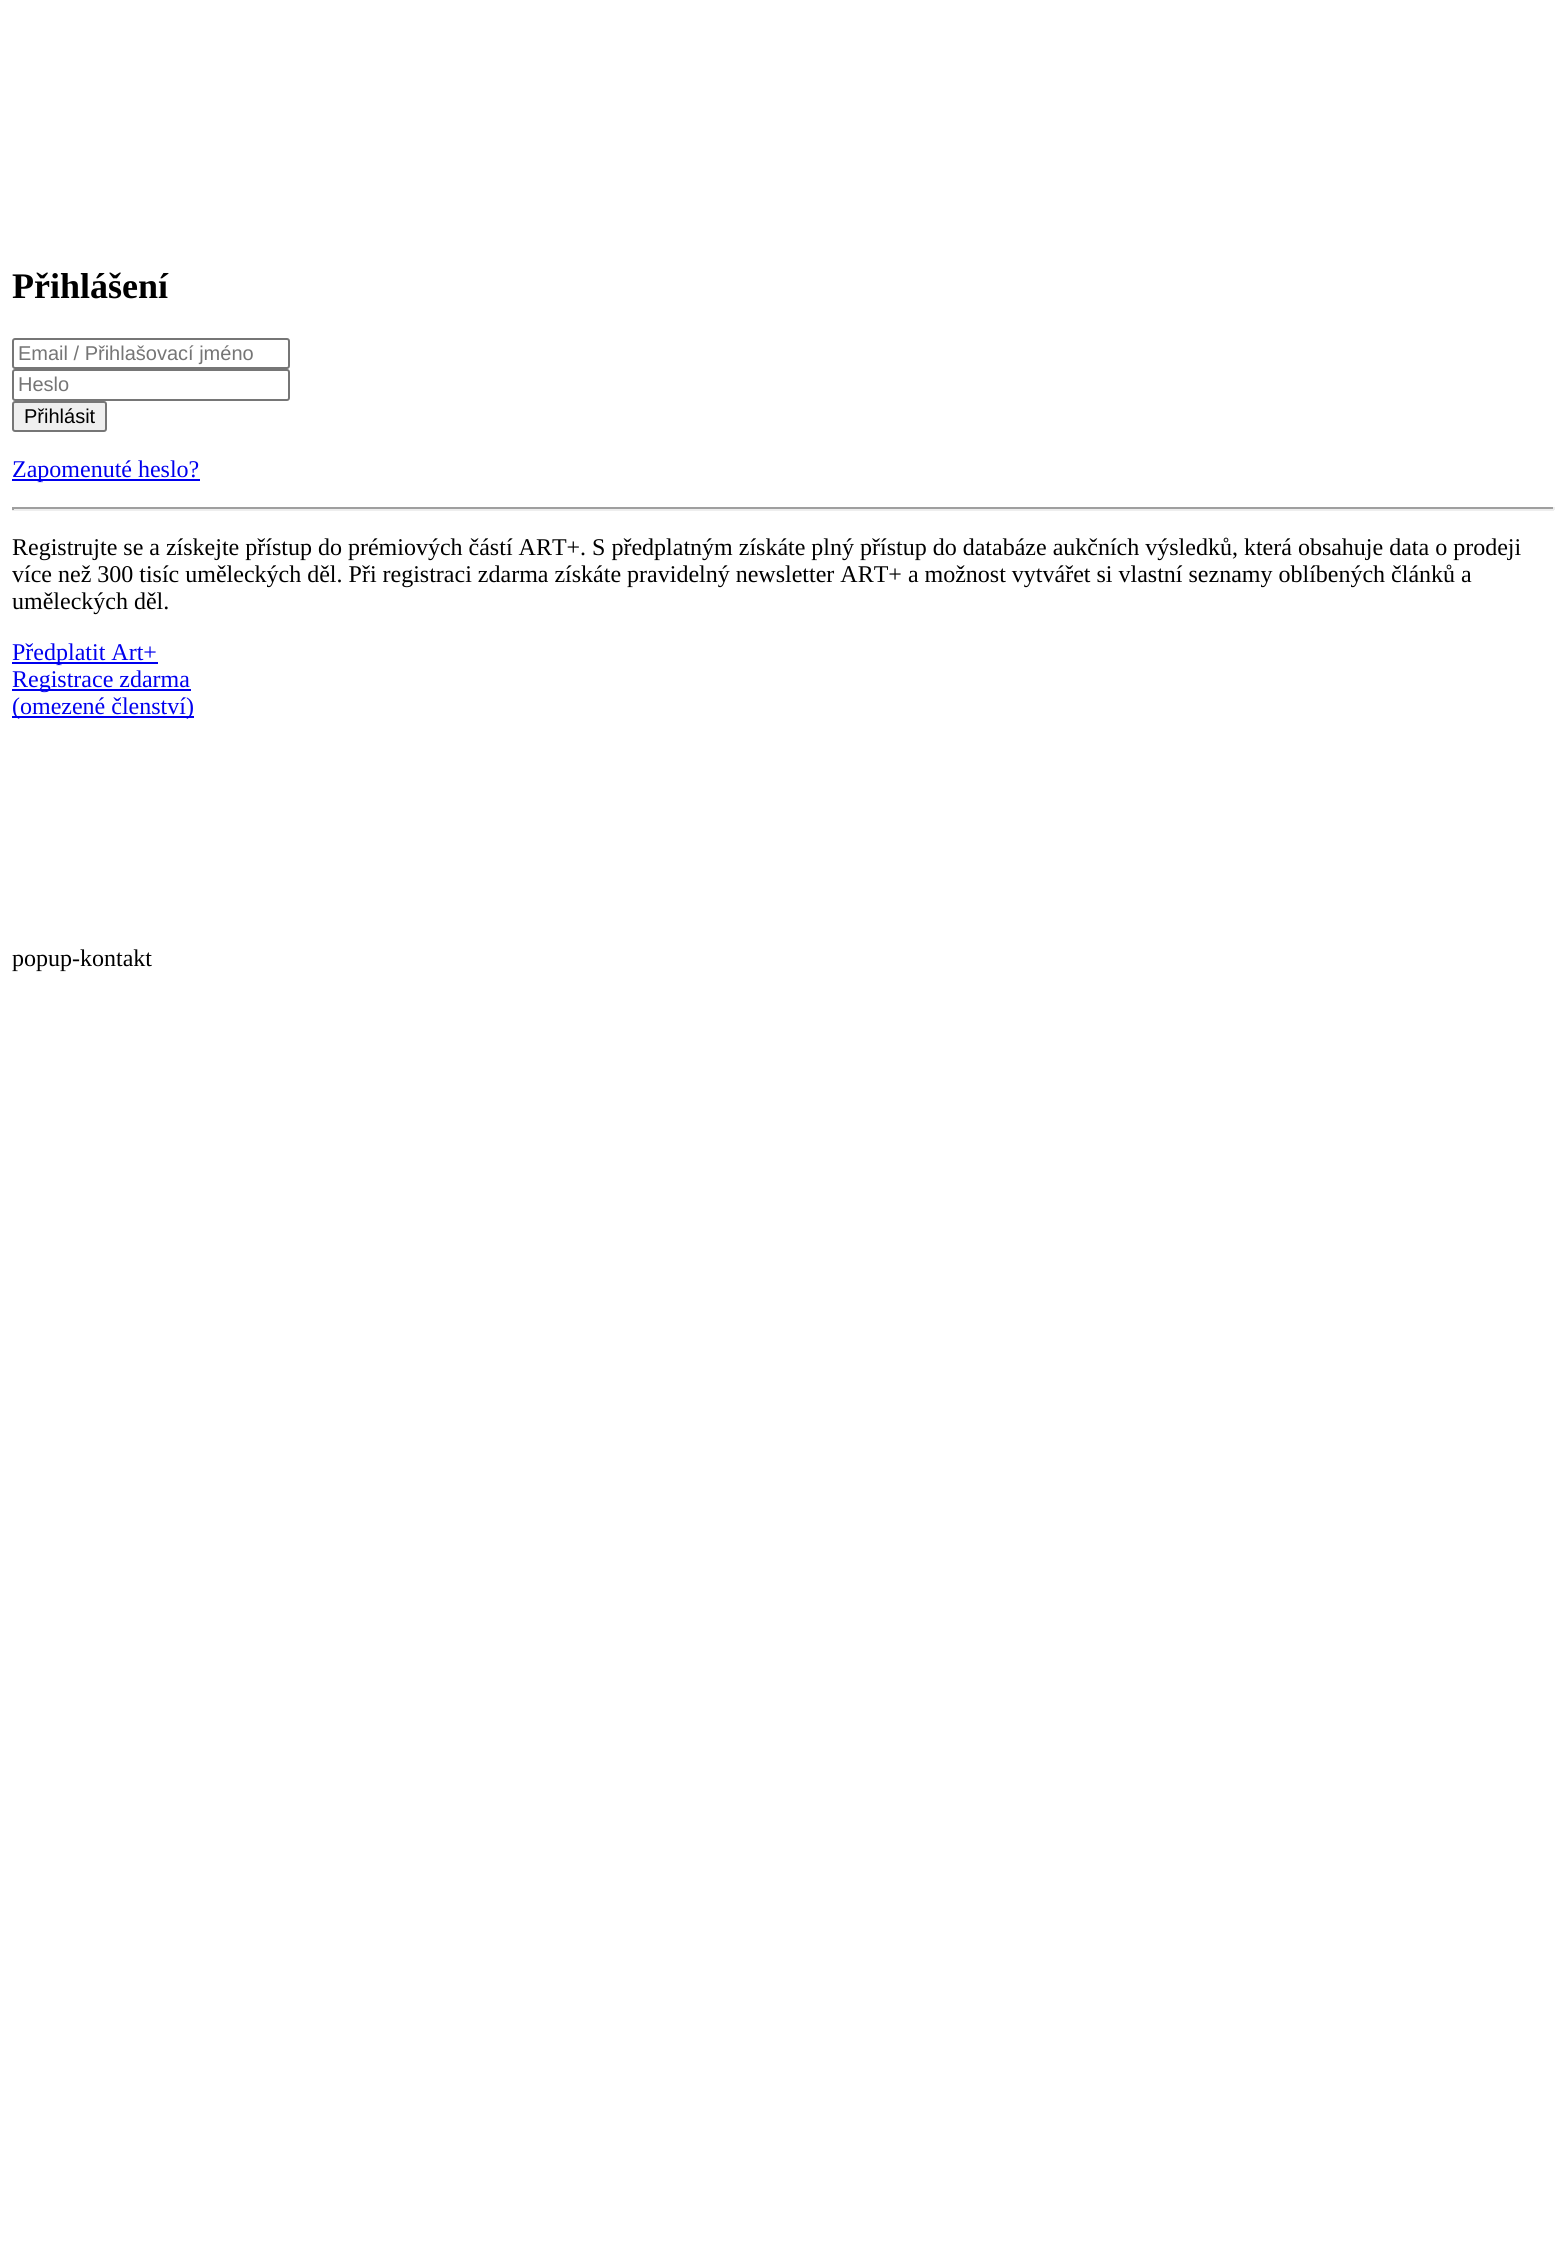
import math
import cairo



def rounded_rect(context, x, y, w, h, r):
    context.new_sub_path()
    for i, (u, v) in enumerate([(x + w - r, y + h - r), (x + r, y + h - r), (x + r, y + r), (x + w - r, y + r)]):
        context.arc(u, v, r, i * math.pi / 2, (i + 1) * math.pi / 2)
    context.close_path()


def draw(context):
    context.set_source_rgb(1, 1, 1)
    context.paint()
    rounded_rect(context, 13, 339, 276, 29, 2)
    context.set_source_rgb(118 / 255, 118 / 255, 118 / 255)
    context.stroke()
    rounded_rect(context, 13, 370, 276, 30, 2)
    context.stroke()
    context.set_source_rgb(239 / 255, 239 / 255, 239 / 255)
    rounded_rect(context, 13, 402, 93, 29, 2)
    context.fill_preserve()
    context.set_source_rgb(118 / 255, 118 / 255, 118 / 255)
    context.stroke()
    context.set_source_rgb(0, 0, 238 / 255)
    context.rectangle(12, 479, 188, 2)
    context.fill()
    context.set_source_rgb(159 / 255, 159 / 255, 159 / 255)
    context.rectangle(12, 507, 1542, 2)
    context.fill()
    context.set_source_rgb(238 / 255, 238 / 255, 238 / 255)
    context.rectangle(1553, 507, 2, 3)
    context.fill()
    context.rectangle(12, 509, 1542, 2)
    context.fill()
    context.set_source_rgb(159 / 255, 159 / 255, 159 / 255)
    context.rectangle(12, 507, 2, 3)
    context.fill()
    context.set_source_rgb(0, 0, 238 / 255)
    context.rectangle(12, 662, 146, 2)
    context.fill()
    context.rectangle(12, 689, 179, 2)
    context.fill()
    context.rectangle(12, 716, 182, 2)
    context.fill()
    context.select_font_face("Liberation Serif", cairo.FontSlant.NORMAL, cairo.FontWeight.BOLD)
    context.set_font_size(36)
    context.set_source_rgb(0, 0, 0)
    context.move_to(12, 298)
    context.show_text("Přihlášení")
    context.select_font_face("Liberation Sans")
    context.set_font_size(20)
    context.set_source_rgb(117 / 255, 117 / 255, 117 / 255)
    context.move_to(18, 360)
    context.show_text("Email / Přihlašovací jméno")
    context.move_to(18, 391)
    context.show_text("Heslo")
    context.set_source_rgb(0, 0, 0)
    context.move_to(24, 423)
    context.show_text("Přihlásit")
    context.select_font_face("Liberation Serif")
    context.set_font_size(24)
    context.set_source_rgb(0, 0, 238 / 255)
    context.move_to(12, 477)
    context.show_text("Zapomenuté heslo?")
    context.set_source_rgb(0, 0, 0)
    context.move_to(12, 555)
    context.show_text("Registrujte se a získejte přístup do prémiových částí ART+. S předplatným získáte plný přístup do databáze aukčních výsledků, která obsahuje data o prodeji")
    context.move_to(12, 582)
    context.show_text("více než 300 tisíc uměleckých děl. Při registraci zdarma získáte pravidelný newsletter ART+ a možnost vytvářet si vlastní seznamy oblíbených článků a")
    context.move_to(12, 609)
    context.show_text("uměleckých děl.")
    context.set_source_rgb(0, 0, 238 / 255)
    context.move_to(12, 660)
    context.show_text("Předplatit Art+")
    context.move_to(12, 687)
    context.show_text("Registrace zdarma")
    context.move_to(12, 714)
    context.show_text("(omezené členství)")
    context.set_source_rgb(0, 0, 0)
    context.move_to(12, 966)
    context.show_text("popup-kontakt")


surface = cairo.ImageSurface(cairo.Format.RGB24, 1565, 2266)
context = cairo.Context(surface)
options = cairo.FontOptions()
options.set_hint_metrics(cairo.HintMetrics.OFF)
options.set_hint_style(cairo.HintStyle.NONE)
context.set_font_options(options)
context.set_miter_limit(4)
draw(context)
surface.write_to_png("out.png")
